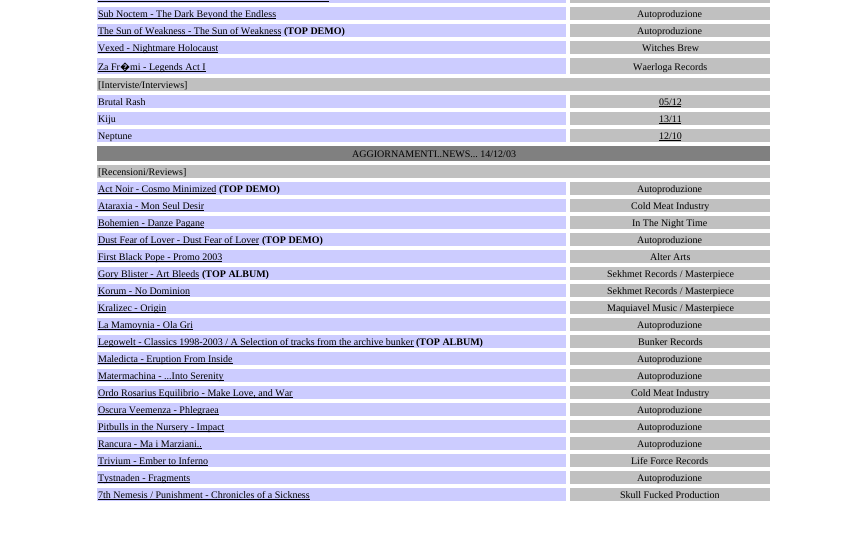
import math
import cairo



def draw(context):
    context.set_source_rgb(1, 1, 1)
    context.paint()
    context.set_source_rgb(204 / 255, 204 / 255, 1)
    context.rectangle(96.5, -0.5, 470, 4)
    context.fill_preserve()
    context.set_source_rgb(1, 1, 1)
    context.set_line_width(1)
    context.stroke()
    context.set_source_rgb(0, 0, 0)
    context.rectangle(98, 1, 231, 1)
    context.fill()
    context.set_source_rgb(192 / 255, 192 / 255, 192 / 255)
    context.rectangle(569.5, -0.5, 201, 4)
    context.fill_preserve()
    context.set_source_rgb(1, 1, 1)
    context.stroke()
    context.set_source_rgb(204 / 255, 204 / 255, 1)
    context.rectangle(97, 7, 469, 13)
    context.fill()
    context.set_source_rgb(0, 0, 0)
    context.rectangle(98, 18, 178, 1)
    context.fill()
    context.set_source_rgb(192 / 255, 192 / 255, 192 / 255)
    context.rectangle(570, 7, 200, 13)
    context.fill()
    context.set_source_rgb(204 / 255, 204 / 255, 1)
    context.rectangle(97, 24, 469, 13)
    context.fill()
    context.set_source_rgb(0, 0, 0)
    context.rectangle(98, 35, 183, 1)
    context.fill()
    context.set_source_rgb(192 / 255, 192 / 255, 192 / 255)
    context.rectangle(570, 24, 200, 13)
    context.fill()
    context.set_source_rgb(204 / 255, 204 / 255, 1)
    context.rectangle(97, 41, 469, 13)
    context.fill()
    context.set_source_rgb(0, 0, 0)
    context.rectangle(98, 52, 120, 1)
    context.fill()
    context.set_source_rgb(192 / 255, 192 / 255, 192 / 255)
    context.rectangle(570, 41, 200, 13)
    context.fill()
    context.set_source_rgb(204 / 255, 204 / 255, 1)
    context.rectangle(97, 58, 469, 16)
    context.fill()
    context.set_source_rgb(0, 0, 0)
    context.rectangle(98, 71, 108, 1)
    context.fill()
    context.set_source_rgb(192 / 255, 192 / 255, 192 / 255)
    context.rectangle(570, 58, 200, 16)
    context.fill()
    context.rectangle(97, 78, 673, 13)
    context.fill()
    context.set_source_rgb(204 / 255, 204 / 255, 1)
    context.rectangle(97, 95, 469, 13)
    context.fill()
    context.set_source_rgb(192 / 255, 192 / 255, 192 / 255)
    context.rectangle(570, 95, 200, 13)
    context.fill()
    context.set_source_rgb(0, 0, 0)
    context.rectangle(659, 106, 22, 1)
    context.fill()
    context.set_source_rgb(204 / 255, 204 / 255, 1)
    context.rectangle(97, 112, 469, 13)
    context.fill()
    context.set_source_rgb(192 / 255, 192 / 255, 192 / 255)
    context.rectangle(570, 112, 200, 13)
    context.fill()
    context.set_source_rgb(0, 0, 0)
    context.rectangle(659, 123, 22, 1)
    context.fill()
    context.set_source_rgb(204 / 255, 204 / 255, 1)
    context.rectangle(97, 129, 469, 13)
    context.fill()
    context.set_source_rgb(192 / 255, 192 / 255, 192 / 255)
    context.rectangle(570, 129, 200, 13)
    context.fill()
    context.set_source_rgb(0, 0, 0)
    context.rectangle(659, 140, 22, 1)
    context.fill()
    context.set_source_rgb(128 / 255, 128 / 255, 128 / 255)
    context.rectangle(97, 146, 673, 15)
    context.fill()
    context.set_source_rgb(192 / 255, 192 / 255, 192 / 255)
    context.rectangle(97, 165, 673, 13)
    context.fill()
    context.set_source_rgb(204 / 255, 204 / 255, 1)
    context.rectangle(97, 182, 469, 13)
    context.fill()
    context.set_source_rgb(0, 0, 0)
    context.rectangle(98, 193, 118, 1)
    context.fill()
    context.set_source_rgb(192 / 255, 192 / 255, 192 / 255)
    context.rectangle(570, 182, 200, 13)
    context.fill()
    context.set_source_rgb(204 / 255, 204 / 255, 1)
    context.rectangle(97, 199, 469, 13)
    context.fill()
    context.set_source_rgb(0, 0, 0)
    context.rectangle(98, 210, 106, 1)
    context.fill()
    context.set_source_rgb(192 / 255, 192 / 255, 192 / 255)
    context.rectangle(570, 199, 200, 13)
    context.fill()
    context.set_source_rgb(204 / 255, 204 / 255, 1)
    context.rectangle(97, 216, 469, 13)
    context.fill()
    context.set_source_rgb(0, 0, 0)
    context.rectangle(98, 227, 106, 1)
    context.fill()
    context.set_source_rgb(192 / 255, 192 / 255, 192 / 255)
    context.rectangle(570, 216, 200, 13)
    context.fill()
    context.set_source_rgb(204 / 255, 204 / 255, 1)
    context.rectangle(97, 233, 469, 13)
    context.fill()
    context.set_source_rgb(0, 0, 0)
    context.rectangle(98, 244, 161, 1)
    context.fill()
    context.set_source_rgb(192 / 255, 192 / 255, 192 / 255)
    context.rectangle(570, 233, 200, 13)
    context.fill()
    context.set_source_rgb(204 / 255, 204 / 255, 1)
    context.rectangle(97, 250, 469, 13)
    context.fill()
    context.set_source_rgb(0, 0, 0)
    context.rectangle(98, 261, 124, 1)
    context.fill()
    context.set_source_rgb(192 / 255, 192 / 255, 192 / 255)
    context.rectangle(570, 250, 200, 13)
    context.fill()
    context.set_source_rgb(204 / 255, 204 / 255, 1)
    context.rectangle(97, 267, 469, 13)
    context.fill()
    context.set_source_rgb(0, 0, 0)
    context.rectangle(98, 278, 101, 1)
    context.fill()
    context.set_source_rgb(192 / 255, 192 / 255, 192 / 255)
    context.rectangle(570, 267, 200, 13)
    context.fill()
    context.set_source_rgb(204 / 255, 204 / 255, 1)
    context.rectangle(97, 284, 469, 13)
    context.fill()
    context.set_source_rgb(0, 0, 0)
    context.rectangle(98, 295, 92, 1)
    context.fill()
    context.set_source_rgb(192 / 255, 192 / 255, 192 / 255)
    context.rectangle(570, 284, 200, 13)
    context.fill()
    context.set_source_rgb(204 / 255, 204 / 255, 1)
    context.rectangle(97, 301, 469, 13)
    context.fill()
    context.set_source_rgb(0, 0, 0)
    context.rectangle(98, 312, 68, 1)
    context.fill()
    context.set_source_rgb(192 / 255, 192 / 255, 192 / 255)
    context.rectangle(570, 301, 200, 13)
    context.fill()
    context.set_source_rgb(204 / 255, 204 / 255, 1)
    context.rectangle(97, 318, 469, 13)
    context.fill()
    context.set_source_rgb(0, 0, 0)
    context.rectangle(98, 329, 95, 1)
    context.fill()
    context.set_source_rgb(192 / 255, 192 / 255, 192 / 255)
    context.rectangle(570, 318, 200, 13)
    context.fill()
    context.set_source_rgb(204 / 255, 204 / 255, 1)
    context.rectangle(97, 335, 469, 13)
    context.fill()
    context.set_source_rgb(0, 0, 0)
    context.rectangle(98, 346, 316, 1)
    context.fill()
    context.set_source_rgb(192 / 255, 192 / 255, 192 / 255)
    context.rectangle(570, 335, 200, 13)
    context.fill()
    context.set_source_rgb(204 / 255, 204 / 255, 1)
    context.rectangle(97, 352, 469, 13)
    context.fill()
    context.set_source_rgb(0, 0, 0)
    context.rectangle(98, 363, 135, 1)
    context.fill()
    context.set_source_rgb(192 / 255, 192 / 255, 192 / 255)
    context.rectangle(570, 352, 200, 13)
    context.fill()
    context.set_source_rgb(204 / 255, 204 / 255, 1)
    context.rectangle(97, 369, 469, 13)
    context.fill()
    context.set_source_rgb(0, 0, 0)
    context.rectangle(98, 380, 126, 1)
    context.fill()
    context.set_source_rgb(192 / 255, 192 / 255, 192 / 255)
    context.rectangle(570, 369, 200, 13)
    context.fill()
    context.set_source_rgb(204 / 255, 204 / 255, 1)
    context.rectangle(97, 386, 469, 13)
    context.fill()
    context.set_source_rgb(0, 0, 0)
    context.rectangle(98, 397, 195, 1)
    context.fill()
    context.set_source_rgb(192 / 255, 192 / 255, 192 / 255)
    context.rectangle(570, 386, 200, 13)
    context.fill()
    context.set_source_rgb(204 / 255, 204 / 255, 1)
    context.rectangle(97, 403, 469, 13)
    context.fill()
    context.set_source_rgb(0, 0, 0)
    context.rectangle(98, 414, 121, 1)
    context.fill()
    context.set_source_rgb(192 / 255, 192 / 255, 192 / 255)
    context.rectangle(570, 403, 200, 13)
    context.fill()
    context.set_source_rgb(204 / 255, 204 / 255, 1)
    context.rectangle(97, 420, 469, 13)
    context.fill()
    context.set_source_rgb(0, 0, 0)
    context.rectangle(98, 431, 126, 1)
    context.fill()
    context.set_source_rgb(192 / 255, 192 / 255, 192 / 255)
    context.rectangle(570, 420, 200, 13)
    context.fill()
    context.set_source_rgb(204 / 255, 204 / 255, 1)
    context.rectangle(97, 437, 469, 13)
    context.fill()
    context.set_source_rgb(0, 0, 0)
    context.rectangle(98, 448, 104, 1)
    context.fill()
    context.set_source_rgb(192 / 255, 192 / 255, 192 / 255)
    context.rectangle(570, 437, 200, 13)
    context.fill()
    context.set_source_rgb(204 / 255, 204 / 255, 1)
    context.rectangle(97, 454, 469, 13)
    context.fill()
    context.set_source_rgb(0, 0, 0)
    context.rectangle(98, 465, 110, 1)
    context.fill()
    context.set_source_rgb(192 / 255, 192 / 255, 192 / 255)
    context.rectangle(570, 454, 200, 13)
    context.fill()
    context.set_source_rgb(204 / 255, 204 / 255, 1)
    context.rectangle(97, 471, 469, 13)
    context.fill()
    context.set_source_rgb(0, 0, 0)
    context.rectangle(98, 482, 92, 1)
    context.fill()
    context.set_source_rgb(192 / 255, 192 / 255, 192 / 255)
    context.rectangle(570, 471, 200, 13)
    context.fill()
    context.set_source_rgb(204 / 255, 204 / 255, 1)
    context.rectangle(97, 488, 469, 13)
    context.fill()
    context.set_source_rgb(0, 0, 0)
    context.rectangle(98, 499, 212, 1)
    context.fill()
    context.set_source_rgb(192 / 255, 192 / 255, 192 / 255)
    context.rectangle(570, 488, 200, 13)
    context.fill()
    context.select_font_face("Liberation Serif")
    context.set_font_size(10)
    context.set_source_rgb(0, 0, 0)
    context.move_to(98, 17)
    context.show_text("Sub Noctem - The Dark Beyond the Endless")
    context.move_to(637, 17)
    context.show_text("Autoproduzione")
    context.move_to(98, 34)
    context.show_text("The Sun of Weakness - The Sun of Weakness")
    context.select_font_face("Liberation Serif", cairo.FontSlant.NORMAL, cairo.FontWeight.BOLD)
    context.move_to(284, 34)
    context.show_text("(TOP DEMO)")
    context.select_font_face("Liberation Serif")
    context.move_to(637, 34)
    context.show_text("Autoproduzione")
    context.move_to(98, 51)
    context.show_text("Vexed - Nightmare Holocaust")
    context.move_to(642, 51)
    context.show_text("Witches Brew")
    context.move_to(98, 70)
    context.show_text("Za Fr")
    context.select_font_face("Noto Sans")
    context.move_to(120, 70)
    context.show_text("�")
    context.select_font_face("Liberation Serif")
    context.move_to(130, 70)
    context.show_text("mi - Legends Act I")
    context.move_to(633, 70)
    context.show_text("Waerloga Records")
    context.move_to(98, 88)
    context.show_text("[Interviste/Interviews]")
    context.move_to(98, 105)
    context.show_text("Brutal Rash")
    context.move_to(659, 105)
    context.show_text("05/12")
    context.move_to(98, 122)
    context.show_text("Kiju")
    context.move_to(659, 122)
    context.show_text("13/11")
    context.move_to(98, 139)
    context.show_text("Neptune")
    context.move_to(659, 139)
    context.show_text("12/10")
    context.move_to(352, 157)
    context.show_text("AGGIORNAMENTI..NEWS... 14/12/03")
    context.move_to(98, 175)
    context.show_text("[Recensioni/Reviews]")
    context.move_to(98, 192)
    context.show_text("Act Noir - Cosmo Minimized")
    context.select_font_face("Liberation Serif", cairo.FontSlant.NORMAL, cairo.FontWeight.BOLD)
    context.move_to(219, 192)
    context.show_text("(TOP DEMO)")
    context.select_font_face("Liberation Serif")
    context.move_to(637, 192)
    context.show_text("Autoproduzione")
    context.move_to(98, 209)
    context.show_text("Ataraxia - Mon Seul Desir")
    context.move_to(631, 209)
    context.show_text("Cold Meat Industry")
    context.move_to(98, 226)
    context.show_text("Bohemien - Danze Pagane")
    context.move_to(632, 226)
    context.show_text("In The Night Time")
    context.move_to(98, 243)
    context.show_text("Dust Fear of Lover - Dust Fear of Lover")
    context.select_font_face("Liberation Serif", cairo.FontSlant.NORMAL, cairo.FontWeight.BOLD)
    context.move_to(262, 243)
    context.show_text("(TOP DEMO)")
    context.select_font_face("Liberation Serif")
    context.move_to(637, 243)
    context.show_text("Autoproduzione")
    context.move_to(98, 260)
    context.show_text("First Black Pope - Promo 2003")
    context.move_to(650, 260)
    context.show_text("Alter Arts")
    context.move_to(98, 277)
    context.show_text("Gory Blister - Art Bleeds")
    context.select_font_face("Liberation Serif", cairo.FontSlant.NORMAL, cairo.FontWeight.BOLD)
    context.move_to(202, 277)
    context.show_text("(TOP ALBUM)")
    context.select_font_face("Liberation Serif")
    context.move_to(607, 277)
    context.show_text("Sekhmet Records / Masterpiece")
    context.move_to(98, 294)
    context.show_text("Korum - No Dominion")
    context.move_to(607, 294)
    context.show_text("Sekhmet Records / Masterpiece")
    context.move_to(98, 311)
    context.show_text("Kralizec - Origin")
    context.move_to(607, 311)
    context.show_text("Maquiavel Music / Masterpiece")
    context.move_to(98, 328)
    context.show_text("La Mamoynia - Ola Gri")
    context.move_to(637, 328)
    context.show_text("Autoproduzione")
    context.move_to(98, 345)
    context.show_text("Legowelt - Classics 1998-2003 / A Selection of tracks from the archive bunker")
    context.select_font_face("Liberation Serif", cairo.FontSlant.NORMAL, cairo.FontWeight.BOLD)
    context.move_to(416, 345)
    context.show_text("(TOP ALBUM)")
    context.select_font_face("Liberation Serif")
    context.move_to(638, 345)
    context.show_text("Bunker Records")
    context.move_to(98, 362)
    context.show_text("Maledicta - Eruption From Inside")
    context.move_to(637, 362)
    context.show_text("Autoproduzione")
    context.move_to(98, 379)
    context.show_text("Matermachina - ...Into Serenity")
    context.move_to(637, 379)
    context.show_text("Autoproduzione")
    context.move_to(98, 396)
    context.show_text("Ordo Rosarius Equilibrio - Make Love, and War")
    context.move_to(631, 396)
    context.show_text("Cold Meat Industry")
    context.move_to(98, 413)
    context.show_text("Oscura Veemenza - Phlegraea")
    context.move_to(637, 413)
    context.show_text("Autoproduzione")
    context.move_to(98, 430)
    context.show_text("Pitbulls in the Nursery - Impact")
    context.move_to(637, 430)
    context.show_text("Autoproduzione")
    context.move_to(98, 447)
    context.show_text("Rancura - Ma i Marziani..")
    context.move_to(637, 447)
    context.show_text("Autoproduzione")
    context.move_to(98, 464)
    context.show_text("Trivium - Ember to Inferno")
    context.move_to(631, 464)
    context.show_text("Life Force Records")
    context.move_to(98, 481)
    context.show_text("Tystnaden - Fragments")
    context.move_to(637, 481)
    context.show_text("Autoproduzione")
    context.move_to(98, 498)
    context.show_text("7th Nemesis / Punishment - Chronicles of a Sickness")
    context.move_to(620, 498)
    context.show_text("Skull Fucked Production")


surface = cairo.ImageSurface(cairo.Format.RGB24, 867, 555)
context = cairo.Context(surface)
options = cairo.FontOptions()
options.set_hint_metrics(cairo.HintMetrics.OFF)
options.set_hint_style(cairo.HintStyle.NONE)
context.set_font_options(options)
context.set_miter_limit(4)
draw(context)
surface.write_to_png("out.png")
